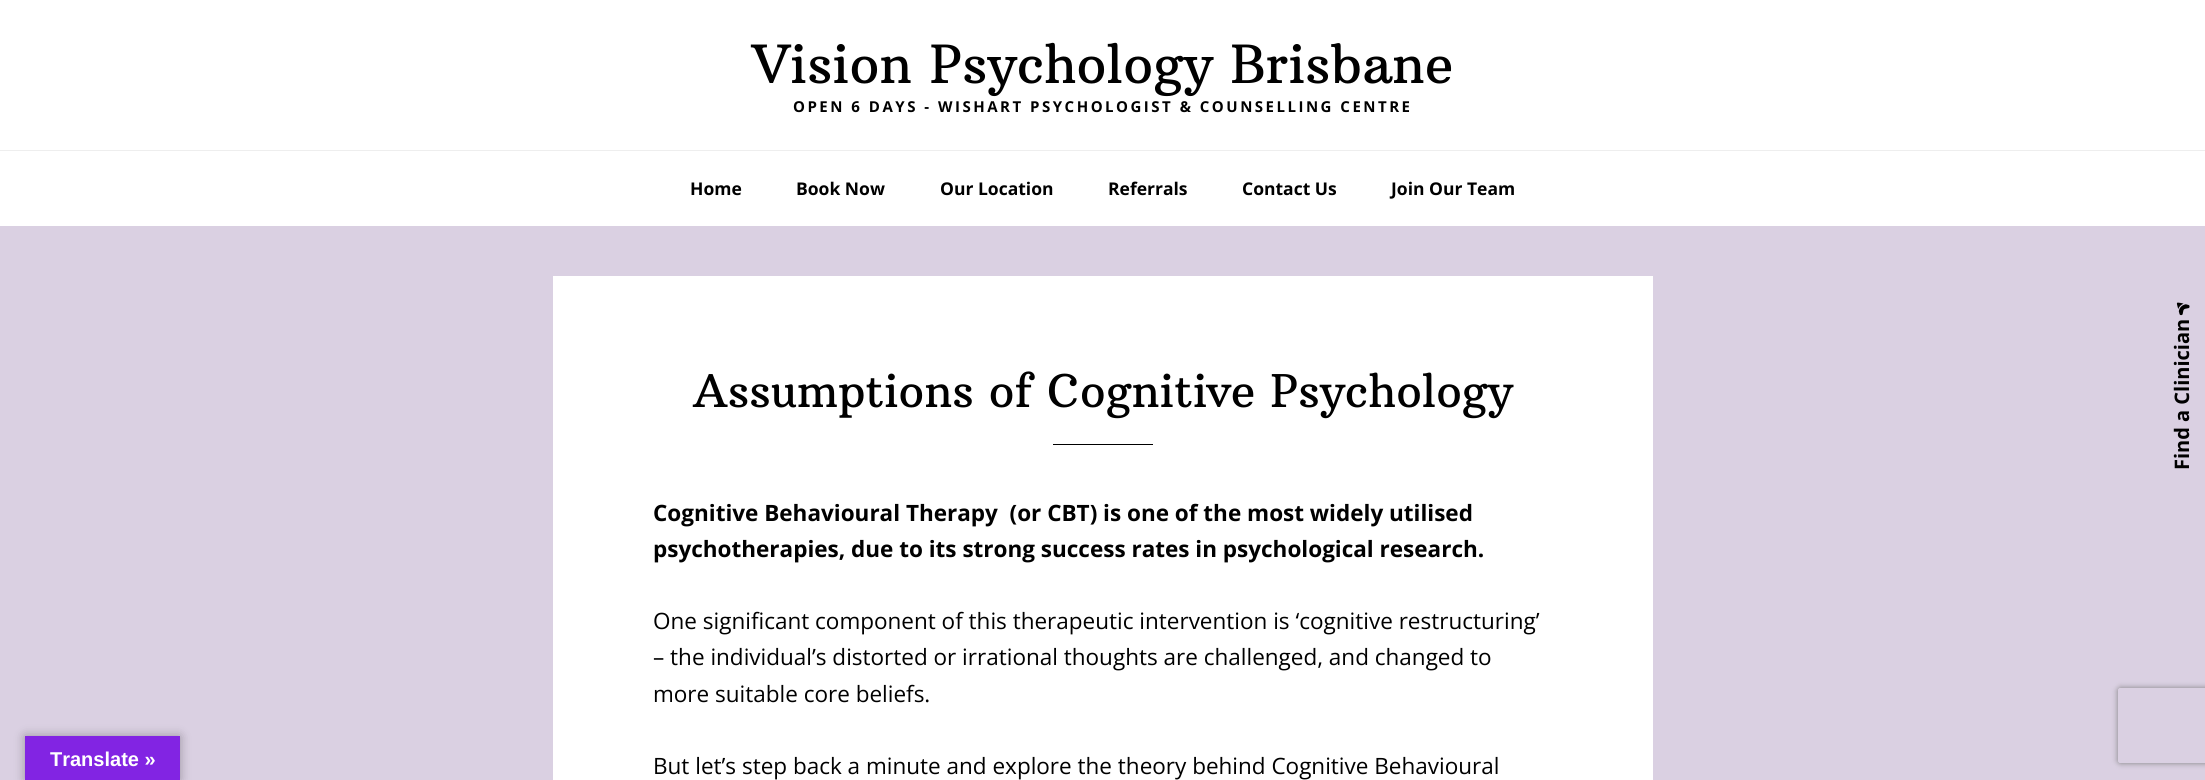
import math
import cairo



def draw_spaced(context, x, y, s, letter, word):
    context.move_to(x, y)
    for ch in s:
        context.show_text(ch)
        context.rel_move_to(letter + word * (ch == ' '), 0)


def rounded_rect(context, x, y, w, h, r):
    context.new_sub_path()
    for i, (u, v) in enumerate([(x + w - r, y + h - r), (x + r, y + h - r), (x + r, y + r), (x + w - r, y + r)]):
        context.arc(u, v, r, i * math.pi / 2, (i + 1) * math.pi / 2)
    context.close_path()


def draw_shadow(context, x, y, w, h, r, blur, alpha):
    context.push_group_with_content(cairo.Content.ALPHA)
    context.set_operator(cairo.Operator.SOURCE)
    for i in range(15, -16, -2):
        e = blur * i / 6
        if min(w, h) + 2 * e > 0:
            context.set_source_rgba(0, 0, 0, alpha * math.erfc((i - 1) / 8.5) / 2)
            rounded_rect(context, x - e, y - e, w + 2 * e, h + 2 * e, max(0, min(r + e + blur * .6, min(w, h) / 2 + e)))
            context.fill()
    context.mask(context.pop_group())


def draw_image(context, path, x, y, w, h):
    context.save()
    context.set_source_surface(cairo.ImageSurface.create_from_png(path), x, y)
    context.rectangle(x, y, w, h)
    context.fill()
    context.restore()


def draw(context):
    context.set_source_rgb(218 / 255, 208 / 255, 226 / 255)
    context.paint()
    context.set_source_rgb(1, 1, 1)
    context.rectangle(0, 0, 2205, 150)
    context.fill()
    context.rectangle(0, 151, 2205, 75)
    context.fill()
    context.set_source_rgb(238 / 255, 238 / 255, 238 / 255)
    context.rectangle(0, 150, 2205, 1)
    context.fill()
    context.set_source_rgb(1, 1, 1)
    context.rectangle(553, 276, 1100, 504)
    context.fill()
    context.set_source_rgb(0, 0, 0)
    context.rectangle(1053, 444, 100, 1)
    context.fill()
    draw_image(context, "images/1.png", 2176, 302, 14, 14)
    context.set_source_rgb(0, 0, 0)
    draw_shadow(context, 25, 736, 155, 44, 0, 5.5, 0.3)
    context.set_source_rgb(130 / 255, 36 / 255, 227 / 255)
    context.rectangle(25, 736, 155, 44)
    context.fill()
    context.save()
    context.set_fill_rule(cairo.FillRule.EVEN_ODD)
    context.new_path()
    context.move_to(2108, 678)
    context.line_to(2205, 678)
    context.line_to(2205, 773)
    context.line_to(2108, 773)
    context.close_path()
    context.move_to(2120.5, 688)
    context.line_to(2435.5, 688)
    context.curve_to(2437, 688, 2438, 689, 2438, 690.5)
    context.line_to(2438, 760.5)
    context.curve_to(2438, 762, 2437, 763, 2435.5, 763)
    context.line_to(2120.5, 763)
    context.curve_to(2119, 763, 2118, 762, 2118, 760.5)
    context.line_to(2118, 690.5)
    context.curve_to(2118, 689, 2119, 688, 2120.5, 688)
    context.close_path()
    context.clip()
    context.set_source_rgb(128 / 255, 128 / 255, 128 / 255)
    draw_shadow(context, 2118, 688, 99, 75, 2.5, 3, 1)
    context.restore()
    context.select_font_face("Arbutus Slab")
    context.set_font_size(52.5)
    context.set_source_rgb(0, 0, 0)
    context.move_to(752, 83)
    context.show_text("Vision Psychology Brisbane")
    context.select_font_face("Open Sans", cairo.FontSlant.NORMAL, cairo.FontWeight.BOLD)
    context.set_font_size(15)
    draw_spaced(context, 793, 112, "OPEN 6 DAYS - WISHART PSYCHOLOGIST & COUNSELLING CENTRE", 2.5, 0)
    context.set_font_size(17.5)
    context.move_to(690, 195)
    context.show_text("Home")
    context.move_to(796, 195)
    context.show_text("Book Now")
    context.move_to(940, 195)
    context.show_text("Our Location")
    context.move_to(1108, 195)
    context.show_text("Referrals")
    context.move_to(1242, 195)
    context.show_text("Contact Us")
    context.move_to(1391, 195)
    context.show_text("Join Our Team")
    context.select_font_face("Arbutus Slab")
    context.set_font_size(45)
    context.move_to(693, 407)
    context.show_text("Assumptions of Cognitive Psychology")
    context.select_font_face("Open Sans", cairo.FontSlant.NORMAL, cairo.FontWeight.BOLD)
    context.set_font_size(22.5)
    context.move_to(653, 521)
    context.show_text("Cognitive Behavioural Therapy  (or CBT) is one of the most widely utilised")
    context.move_to(653, 557)
    context.show_text("psychotherapies, due to its strong success rates in psychological research.")
    context.select_font_face("Open Sans")
    context.move_to(653, 629)
    context.show_text("One significant component of this therapeutic intervention is ‘cognitive restructuring’")
    context.move_to(653, 665)
    context.show_text("– the individual’s distorted or irrational thoughts are challenged, and changed to")
    context.move_to(653, 702)
    context.show_text("more suitable core beliefs.")
    context.move_to(653, 774)
    context.show_text("But let’s step back a minute and explore the theory behind Cognitive Behavioural")
    context.select_font_face("Open Sans", cairo.FontSlant.NORMAL, cairo.FontWeight.BOLD)
    context.set_font_size(20)
    context.save()
    context.translate(2189, 470)
    context.rotate(-90 * math.pi / 180)
    context.move_to(0, 0)
    context.show_text("Find a Clinician")
    context.restore()
    context.select_font_face("Liberation Sans", cairo.FontSlant.NORMAL, cairo.FontWeight.BOLD)
    context.set_source_rgb(1, 1, 1)
    context.move_to(50, 766)
    context.show_text("Translate »")


surface = cairo.ImageSurface(cairo.Format.RGB24, 2205, 780)
context = cairo.Context(surface)
options = cairo.FontOptions()
options.set_hint_metrics(cairo.HintMetrics.OFF)
options.set_hint_style(cairo.HintStyle.NONE)
context.set_font_options(options)
context.set_miter_limit(4)
draw(context)
surface.write_to_png("out.png")
